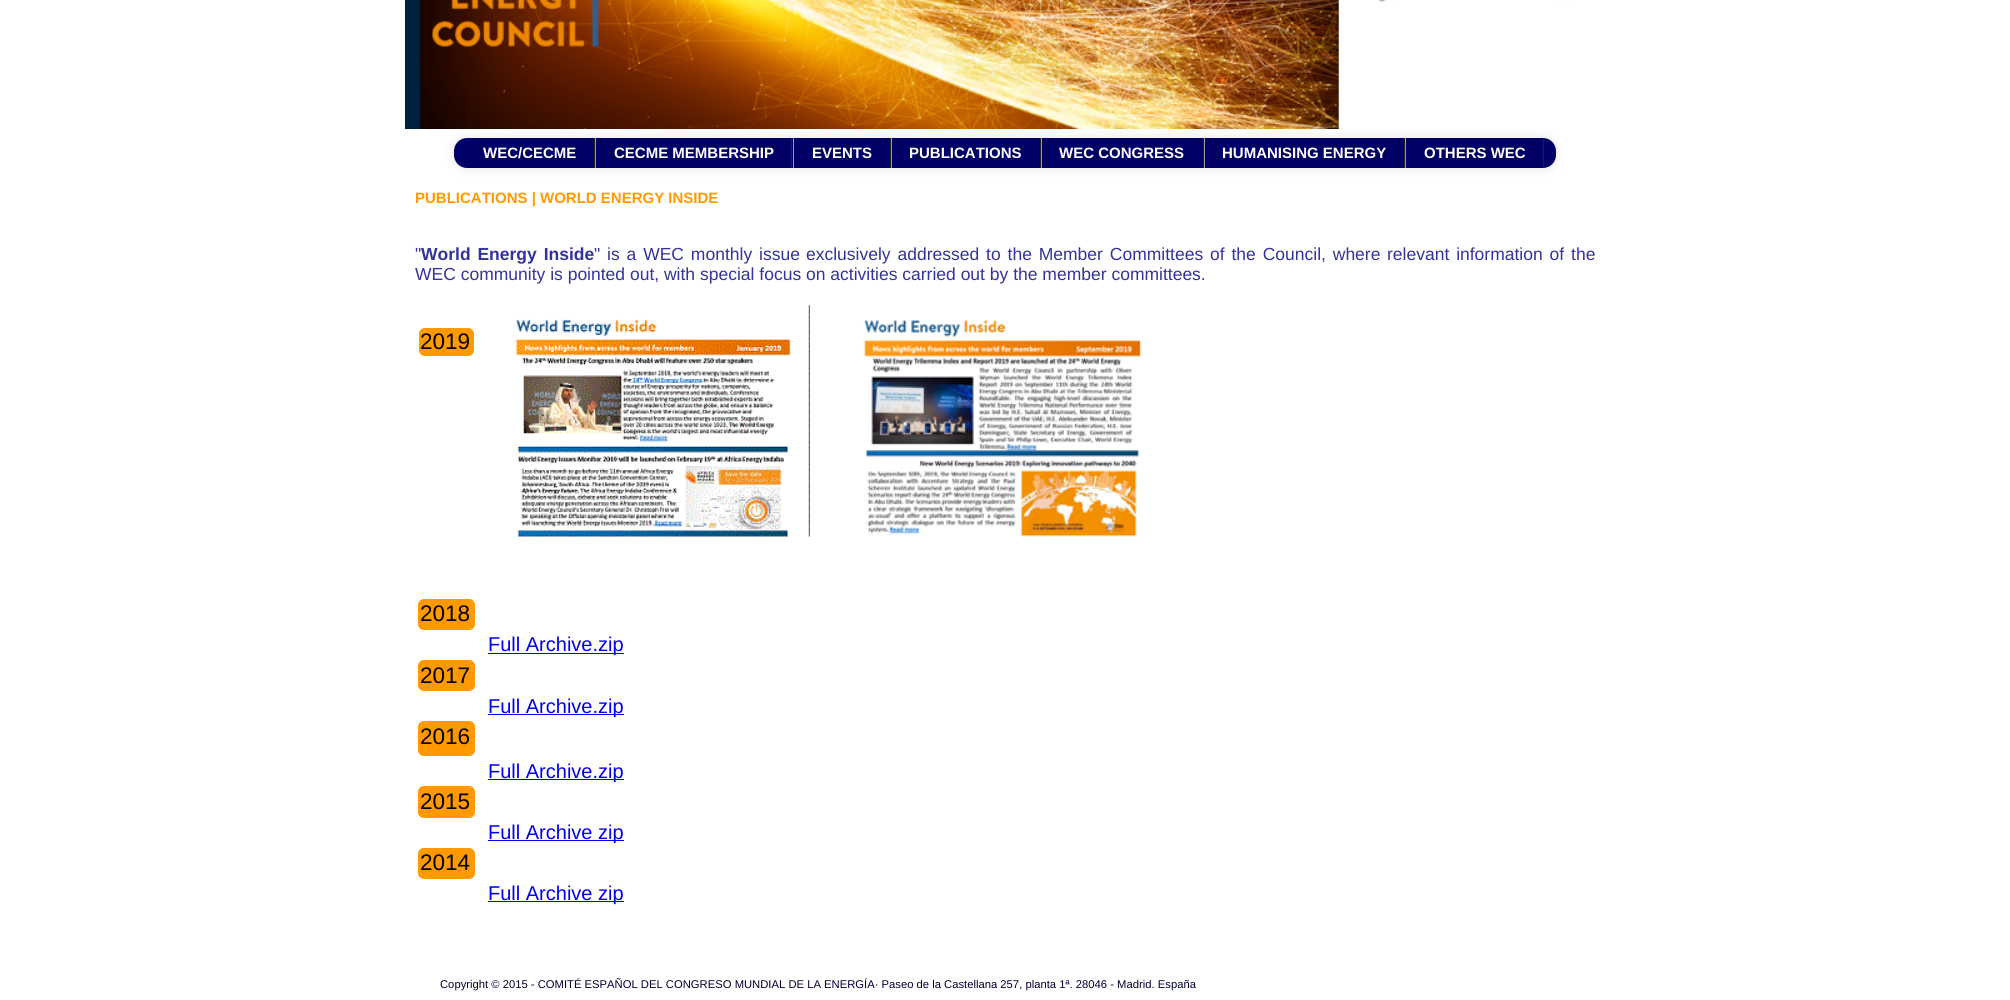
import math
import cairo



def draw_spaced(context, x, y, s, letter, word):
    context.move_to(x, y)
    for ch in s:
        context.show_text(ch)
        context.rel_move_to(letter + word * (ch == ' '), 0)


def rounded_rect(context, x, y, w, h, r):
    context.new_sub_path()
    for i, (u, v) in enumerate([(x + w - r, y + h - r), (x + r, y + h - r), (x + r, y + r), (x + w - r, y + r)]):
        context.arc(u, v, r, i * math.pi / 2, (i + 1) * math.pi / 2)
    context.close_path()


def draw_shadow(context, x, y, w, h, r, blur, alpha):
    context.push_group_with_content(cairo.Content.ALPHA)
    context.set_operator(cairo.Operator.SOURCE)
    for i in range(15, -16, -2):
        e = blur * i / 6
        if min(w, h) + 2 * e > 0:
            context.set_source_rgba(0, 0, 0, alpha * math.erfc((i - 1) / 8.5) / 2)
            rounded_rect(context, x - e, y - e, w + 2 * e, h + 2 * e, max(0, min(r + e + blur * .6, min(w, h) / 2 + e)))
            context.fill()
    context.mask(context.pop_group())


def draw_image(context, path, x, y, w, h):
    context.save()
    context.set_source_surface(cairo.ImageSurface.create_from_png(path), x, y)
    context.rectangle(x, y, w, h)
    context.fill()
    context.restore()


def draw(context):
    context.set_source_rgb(1, 1, 1)
    context.paint()
    draw_image(context, "images/1.png", 405, 0, 934, 129)
    draw_image(context, "images/2.png", 1377, 0, 194, 2)
    context.set_source_rgb(0, 0, 0)
    draw_shadow(context, 454, 138, 1102, 30, 13, 5.5, 0.1)
    context.set_source_rgb(0, 0, 102 / 255)
    rounded_rect(context, 454, 138, 1102, 30, 13)
    context.fill()
    context.set_source_rgb(34 / 255, 34 / 255, 34 / 255)
    context.rectangle(594, 138, 1, 30)
    context.fill()
    context.rectangle(791, 138, 1, 30)
    context.fill()
    context.set_source_rgb(153 / 255, 153 / 255, 153 / 255)
    context.rectangle(595, 138, 1, 30)
    context.fill()
    context.set_source_rgb(34 / 255, 34 / 255, 34 / 255)
    context.rectangle(890, 138, 1, 30)
    context.fill()
    context.set_source_rgb(153 / 255, 153 / 255, 153 / 255)
    context.rectangle(793, 138, 1, 30)
    context.fill()
    context.set_source_rgb(34 / 255, 34 / 255, 34 / 255)
    context.rectangle(1040, 138, 1, 30)
    context.fill()
    context.set_source_rgb(153 / 255, 153 / 255, 153 / 255)
    context.rectangle(891, 138, 1, 30)
    context.fill()
    context.set_source_rgb(34 / 255, 34 / 255, 34 / 255)
    context.rectangle(1203, 138, 1, 30)
    context.fill()
    context.set_source_rgb(153 / 255, 153 / 255, 153 / 255)
    context.rectangle(1041, 138, 1, 30)
    context.fill()
    context.set_source_rgb(34 / 255, 34 / 255, 34 / 255)
    context.rectangle(1404, 138, 1, 30)
    context.fill()
    context.set_source_rgb(153 / 255, 153 / 255, 153 / 255)
    context.rectangle(1204, 138, 1, 30)
    context.fill()
    context.set_source_rgb(34 / 255, 34 / 255, 34 / 255)
    context.rectangle(1543, 138, 1, 30)
    context.fill()
    context.set_source_rgb(153 / 255, 153 / 255, 153 / 255)
    context.rectangle(1405, 138, 1, 30)
    context.fill()
    context.set_source_rgb(1, 153 / 255, 0)
    rounded_rect(context, 419.5, 328.5, 54, 27, 5.5)
    context.fill_preserve()
    context.set_line_width(1)
    context.stroke()
    draw_image(context, "images/3.png", 516, 305, 294, 232)
    draw_image(context, "images/4.png", 863, 320, 279, 217)
    rounded_rect(context, 418.5, 599.5, 56, 30, 5.5)
    context.fill_preserve()
    context.stroke()
    context.set_source_rgb(0, 0, 238 / 255)
    context.rectangle(488, 653, 136, 1)
    context.fill()
    context.set_source_rgb(1, 153 / 255, 0)
    rounded_rect(context, 418.5, 660.5, 56, 30, 5.5)
    context.fill_preserve()
    context.stroke()
    context.set_source_rgb(0, 0, 238 / 255)
    context.rectangle(488, 714, 136, 1)
    context.fill()
    context.set_source_rgb(1, 153 / 255, 0)
    rounded_rect(context, 418.5, 721.5, 56, 34, 5.5)
    context.fill_preserve()
    context.stroke()
    context.set_source_rgb(0, 0, 238 / 255)
    context.rectangle(488, 779, 136, 1)
    context.fill()
    context.set_source_rgb(1, 153 / 255, 0)
    rounded_rect(context, 418.5, 786.5, 56, 31, 5.5)
    context.fill_preserve()
    context.stroke()
    context.set_source_rgb(0, 0, 238 / 255)
    context.rectangle(488, 840, 136, 1)
    context.fill()
    context.set_source_rgb(1, 153 / 255, 0)
    rounded_rect(context, 418.5, 848.5, 56, 30, 5.5)
    context.fill_preserve()
    context.stroke()
    context.set_source_rgb(0, 0, 238 / 255)
    context.rectangle(488, 901, 136, 1)
    context.fill()
    context.select_font_face("Liberation Sans", cairo.FontSlant.NORMAL, cairo.FontWeight.BOLD)
    context.set_font_size(15)
    context.set_source_rgb(1, 1, 1)
    context.move_to(483, 158)
    context.show_text("WEC/CECME")
    context.move_to(614, 158)
    context.show_text("CECME MEMBERSHIP")
    context.move_to(812, 158)
    context.show_text("EVENTS")
    context.move_to(909, 158)
    context.show_text("PUBLICATIONS")
    context.move_to(1059, 158)
    context.show_text("WEC CONGRESS")
    context.move_to(1222, 158)
    context.show_text("HUMANISING ENERGY")
    context.move_to(1424, 158)
    context.show_text("OTHERS WEC")
    context.set_source_rgb(1, 153 / 255, 0)
    context.move_to(415, 203)
    context.show_text("PUBLICATIONS | WORLD ENERGY INSIDE")
    context.select_font_face("Liberation Sans")
    context.set_font_size(17.5)
    context.set_source_rgb(51 / 255, 51 / 255, 153 / 255)
    context.move_to(415, 260)
    context.show_text("\"")
    context.select_font_face("Liberation Sans", cairo.FontSlant.NORMAL, cairo.FontWeight.BOLD)
    draw_spaced(context, 421, 260, "World Energy Inside", 0, 2)
    context.select_font_face("Liberation Sans")
    draw_spaced(context, 594, 260, "\" is a WEC monthly issue", 0, 2)
    draw_spaced(context, 806, 260, "exclusively addressed to the Member Committees of the Council, where", 0, 2)
    draw_spaced(context, 1387, 260, "relevant information of the", 0, 2)
    context.move_to(415, 280)
    context.show_text("WEC community is pointed out, with special focus on activities carried out by the member committees.")
    context.set_font_size(22.5)
    context.set_source_rgb(0, 0, 0)
    context.move_to(420, 349)
    context.show_text("2019")
    context.move_to(420, 621)
    context.show_text("2018")
    context.set_font_size(20)
    context.set_source_rgb(0, 0, 238 / 255)
    context.move_to(488, 651)
    context.show_text("Full Archive.zip")
    context.set_font_size(22.5)
    context.set_source_rgb(0, 0, 0)
    context.move_to(420, 683)
    context.show_text("2017")
    context.set_font_size(20)
    context.set_source_rgb(0, 0, 238 / 255)
    context.move_to(488, 713)
    context.show_text("Full Archive.zip")
    context.set_font_size(22.5)
    context.set_source_rgb(0, 0, 0)
    context.move_to(420, 744)
    context.show_text("2016")
    context.set_font_size(20)
    context.set_source_rgb(0, 0, 238 / 255)
    context.move_to(488, 778)
    context.show_text("Full Archive.zip")
    context.set_font_size(22.5)
    context.set_source_rgb(0, 0, 0)
    context.move_to(420, 809)
    context.show_text("2015")
    context.set_font_size(20)
    context.set_source_rgb(0, 0, 238 / 255)
    context.move_to(488, 839)
    context.show_text("Full Archive zip")
    context.set_font_size(22.5)
    context.set_source_rgb(0, 0, 0)
    context.move_to(420, 870)
    context.show_text("2014")
    context.set_font_size(20)
    context.set_source_rgb(0, 0, 238 / 255)
    context.move_to(488, 900)
    context.show_text("Full Archive zip")
    context.set_font_size(11.25)
    context.set_source_rgb(0, 0, 51 / 255)
    context.move_to(440, 988)
    context.show_text("Copyright © 2015 - COMITÉ ESPAÑOL DEL CONGRESO MUNDIAL DE LA ENERGÍA· Paseo de la Castellana 257, planta 1ª. 28046 - Madrid. España")


surface = cairo.ImageSurface(cairo.Format.RGB24, 2010, 1000)
context = cairo.Context(surface)
options = cairo.FontOptions()
options.set_hint_metrics(cairo.HintMetrics.OFF)
options.set_hint_style(cairo.HintStyle.NONE)
context.set_font_options(options)
context.set_miter_limit(4)
draw(context)
surface.write_to_png("out.png")
